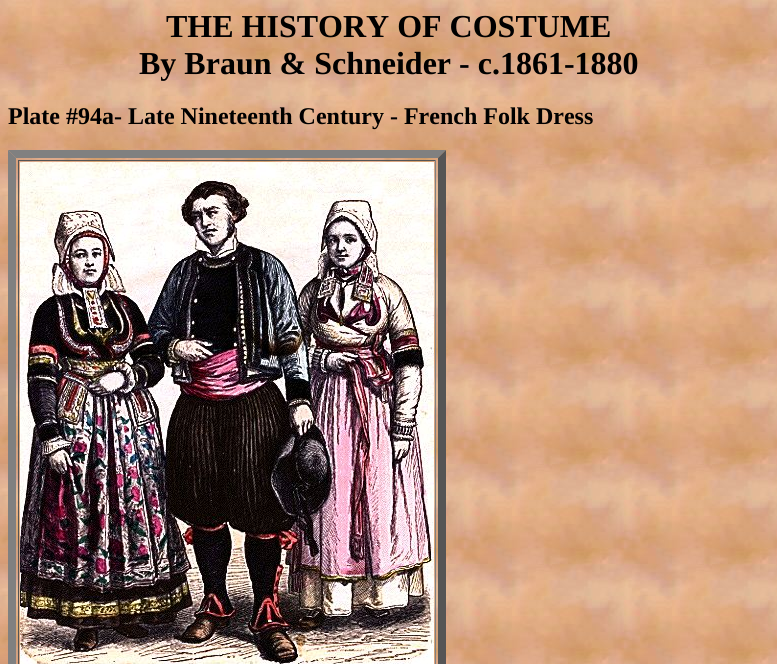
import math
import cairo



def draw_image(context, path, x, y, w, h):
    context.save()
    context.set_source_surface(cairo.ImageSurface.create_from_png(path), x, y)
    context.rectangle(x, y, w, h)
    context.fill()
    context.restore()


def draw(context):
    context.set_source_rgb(1, 1, 1)
    context.paint()
    draw_image(context, "images/1.png", 0, 0, 777, 664)
    context.set_source_rgb(128 / 255, 128 / 255, 128 / 255)
    context.new_path()
    context.move_to(8, 150)
    context.line_to(446, 150)
    context.line_to(438, 158)
    context.line_to(16, 158)
    context.close_path()
    context.fill()
    context.set_source_rgb(85 / 255, 85 / 255, 85 / 255)
    context.new_path()
    context.move_to(446, 150)
    context.line_to(446, 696)
    context.line_to(438, 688)
    context.line_to(438, 158)
    context.close_path()
    context.fill()
    context.set_source_rgb(128 / 255, 128 / 255, 128 / 255)
    context.new_path()
    context.move_to(8, 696)
    context.line_to(8, 150)
    context.line_to(16, 158)
    context.line_to(16, 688)
    context.close_path()
    context.fill()
    context.set_source_rgb(85 / 255, 85 / 255, 85 / 255)
    context.rectangle(18, 160, 418, 1)
    context.fill()
    context.set_source_rgb(128 / 255, 128 / 255, 128 / 255)
    context.rectangle(435, 160, 1, 504)
    context.fill()
    context.set_source_rgb(85 / 255, 85 / 255, 85 / 255)
    context.rectangle(18, 160, 1, 504)
    context.fill()
    draw_image(context, "images/2.png", 20, 162, 414, 502)
    context.select_font_face("Liberation Serif", cairo.FontSlant.NORMAL, cairo.FontWeight.BOLD)
    context.set_font_size(32)
    context.set_source_rgb(0, 0, 0)
    context.move_to(166, 37)
    context.show_text("THE HISTORY OF COSTUME")
    context.move_to(139, 74)
    context.show_text("By Braun & Schneider - c.1861-1880")
    context.set_font_size(24)
    context.move_to(8, 124)
    context.show_text("Plate #94a- Late Nineteenth Century - French Folk Dress")


surface = cairo.ImageSurface(cairo.Format.RGB24, 777, 664)
context = cairo.Context(surface)
options = cairo.FontOptions()
options.set_hint_metrics(cairo.HintMetrics.OFF)
options.set_hint_style(cairo.HintStyle.NONE)
context.set_font_options(options)
context.set_miter_limit(4)
draw(context)
surface.write_to_png("out.png")
